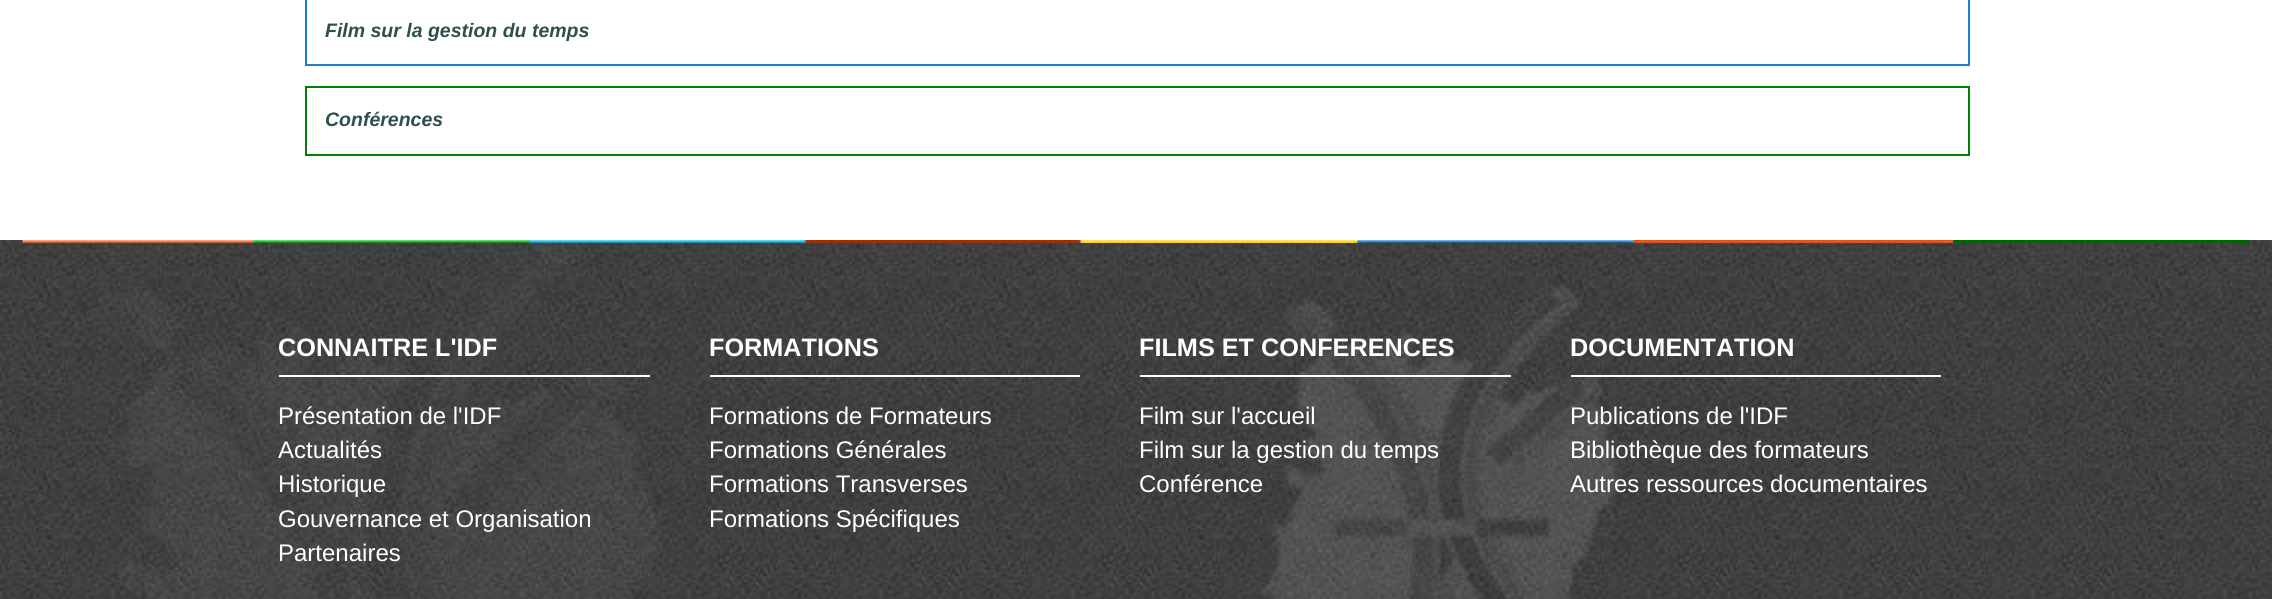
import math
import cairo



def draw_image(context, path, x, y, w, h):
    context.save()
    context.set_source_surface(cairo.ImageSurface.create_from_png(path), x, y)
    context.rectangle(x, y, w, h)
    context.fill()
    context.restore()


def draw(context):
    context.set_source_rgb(1, 1, 1)
    context.paint()
    context.rectangle(306, -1, 1663, 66)
    context.set_source_rgb(30 / 255, 127 / 255, 203 / 255)
    context.stroke()
    context.rectangle(306, 87, 1663, 68)
    context.set_source_rgb(0, 128 / 255, 0)
    context.stroke()
    draw_image(context, "images/1.png", 0, 240, 2272, 359)
    draw_image(context, "images/2.png", 22, 240, 2228, 3)
    context.set_source_rgb(1, 1, 1)
    context.rectangle(279, 375, 371, 2)
    context.fill()
    context.rectangle(710, 375, 370, 2)
    context.fill()
    context.rectangle(1140, 375, 371, 2)
    context.fill()
    context.rectangle(1571, 375, 370, 2)
    context.fill()
    context.select_font_face("Liberation Sans", cairo.FontSlant.ITALIC, cairo.FontWeight.BOLD)
    context.set_font_size(19.5)
    context.set_source_rgb(47 / 255, 79 / 255, 79 / 255)
    context.move_to(325, 37)
    context.show_text("Film sur la gestion du temps")
    context.move_to(325, 126)
    context.show_text("Conférences")
    context.select_font_face("Liberation Sans", cairo.FontSlant.NORMAL, cairo.FontWeight.BOLD)
    context.set_font_size(25.25)
    context.set_source_rgb(1, 1, 1)
    context.move_to(278, 356)
    context.show_text("CONNAITRE L'IDF")
    context.select_font_face("Liberation Sans")
    context.set_font_size(24)
    context.move_to(278, 424)
    context.show_text("Présentation de l'IDF")
    context.move_to(278, 458)
    context.show_text("Actualités")
    context.move_to(278, 492)
    context.show_text("Historique")
    context.move_to(278, 527)
    context.show_text("Gouvernance et Organisation")
    context.move_to(278, 561)
    context.show_text("Partenaires")
    context.select_font_face("Liberation Sans", cairo.FontSlant.NORMAL, cairo.FontWeight.BOLD)
    context.set_font_size(25.25)
    context.move_to(709, 356)
    context.show_text("FORMATIONS")
    context.select_font_face("Liberation Sans")
    context.set_font_size(24)
    context.move_to(709, 424)
    context.show_text("Formations de Formateurs")
    context.move_to(709, 458)
    context.show_text("Formations Générales")
    context.move_to(709, 492)
    context.show_text("Formations Transverses")
    context.move_to(709, 527)
    context.show_text("Formations Spécifiques")
    context.select_font_face("Liberation Sans", cairo.FontSlant.NORMAL, cairo.FontWeight.BOLD)
    context.set_font_size(25.25)
    context.move_to(1139, 356)
    context.show_text("FILMS ET CONFERENCES")
    context.select_font_face("Liberation Sans")
    context.set_font_size(24)
    context.move_to(1139, 424)
    context.show_text("Film sur l'accueil")
    context.move_to(1139, 458)
    context.show_text("Film sur la gestion du temps")
    context.move_to(1139, 492)
    context.show_text("Conférence")
    context.select_font_face("Liberation Sans", cairo.FontSlant.NORMAL, cairo.FontWeight.BOLD)
    context.set_font_size(25.25)
    context.move_to(1570, 356)
    context.show_text("DOCUMENTATION")
    context.select_font_face("Liberation Sans")
    context.set_font_size(24)
    context.move_to(1570, 424)
    context.show_text("Publications de l'IDF")
    context.move_to(1570, 458)
    context.show_text("Bibliothèque des formateurs")
    context.move_to(1570, 492)
    context.show_text("Autres ressources documentaires")


surface = cairo.ImageSurface(cairo.Format.RGB24, 2272, 599)
context = cairo.Context(surface)
options = cairo.FontOptions()
options.set_hint_metrics(cairo.HintMetrics.OFF)
options.set_hint_style(cairo.HintStyle.NONE)
context.set_font_options(options)
context.set_miter_limit(4)
draw(context)
surface.write_to_png("out.png")
